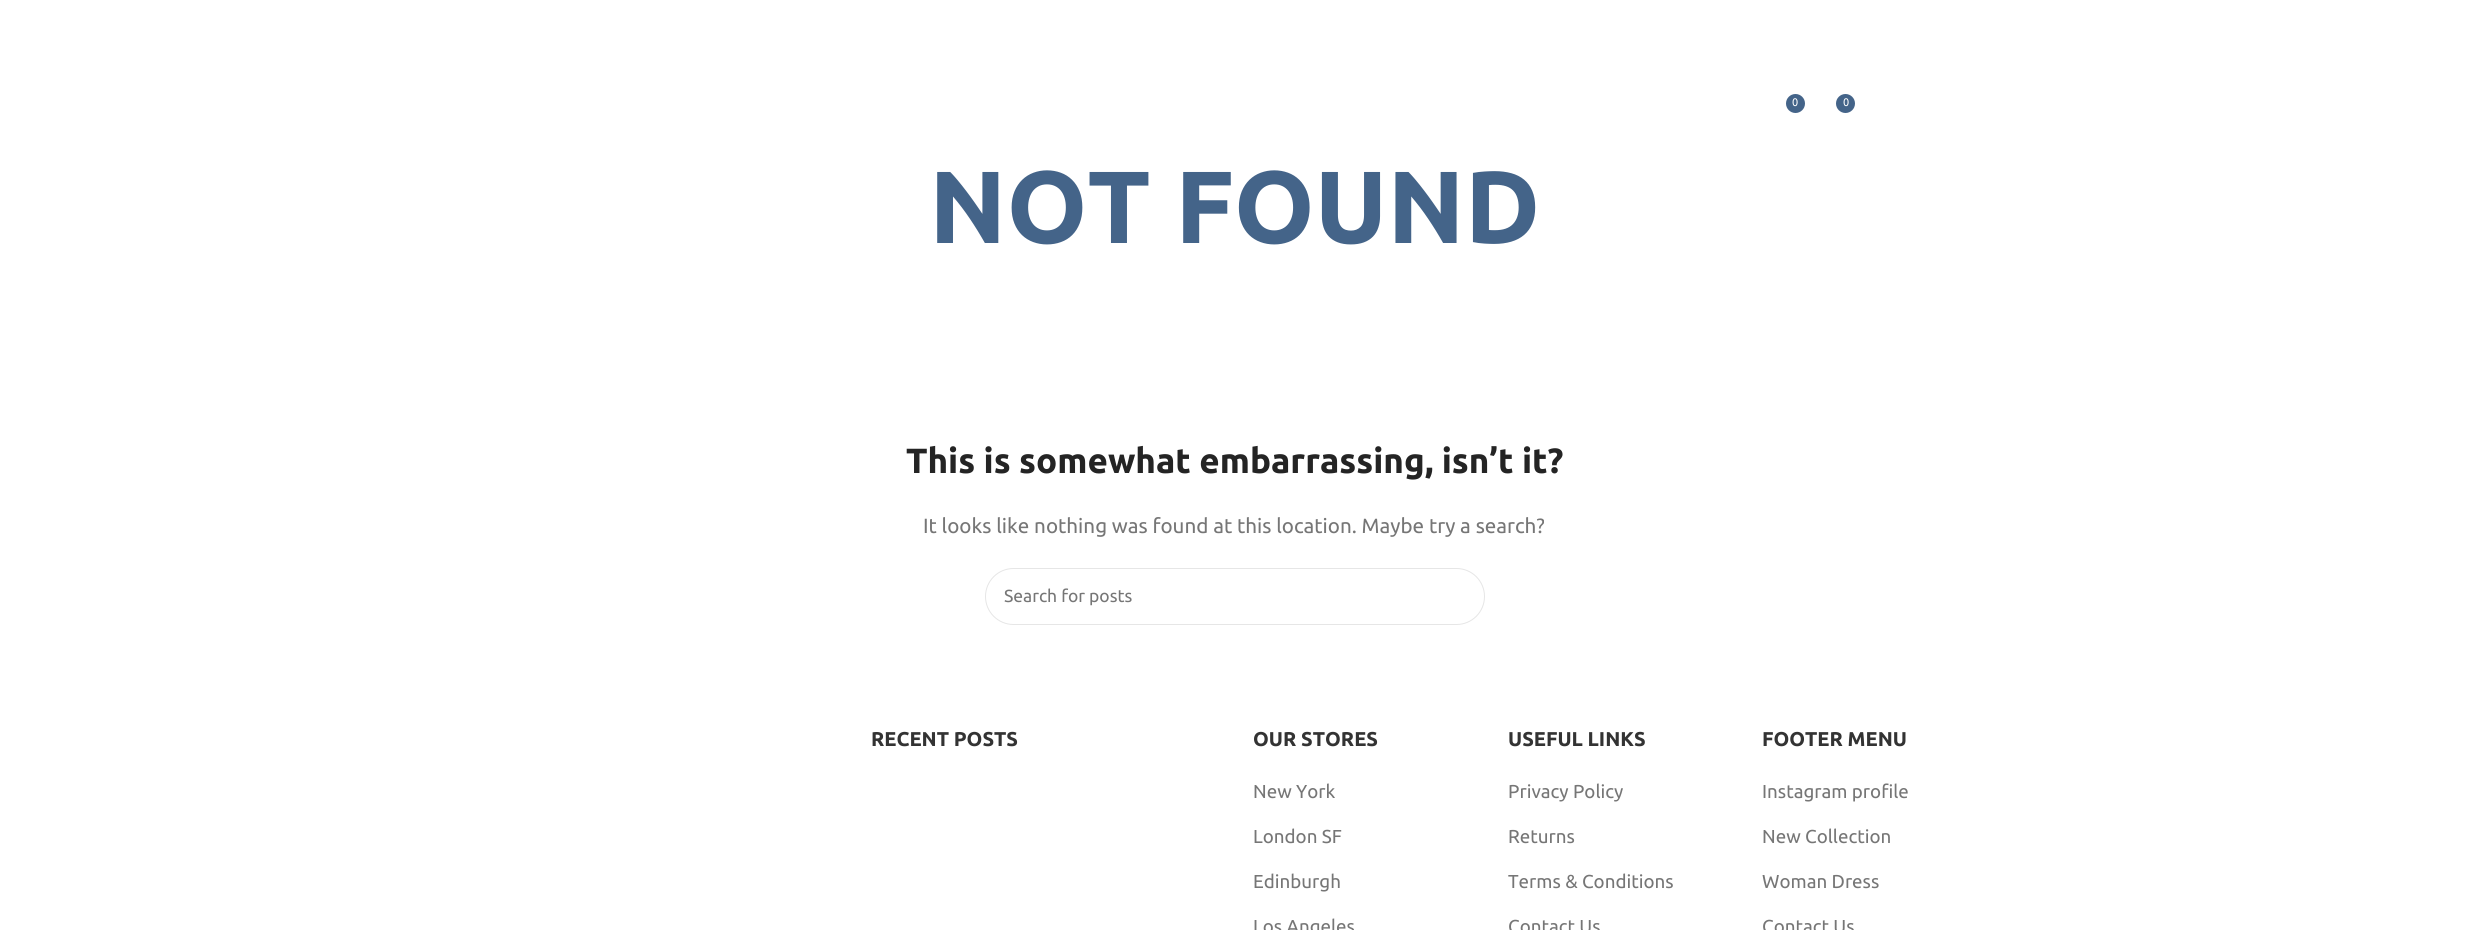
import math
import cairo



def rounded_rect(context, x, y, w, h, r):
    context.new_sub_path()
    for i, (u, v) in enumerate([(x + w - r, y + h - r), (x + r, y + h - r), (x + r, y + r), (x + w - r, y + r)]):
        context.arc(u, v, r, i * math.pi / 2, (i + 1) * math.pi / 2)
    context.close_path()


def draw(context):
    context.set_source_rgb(1, 1, 1)
    context.paint()
    context.set_source_rgb(68 / 255, 100 / 255, 137 / 255)
    context.arc(1795.5, 103.5, 9.5, 0, 2 * math.pi)
    context.fill()
    context.arc(1845.5, 103.5, 9.5, 0, 2 * math.pi)
    context.fill()
    rounded_rect(context, 985.5, 568.5, 499, 56, 28)
    context.set_source_rgb(230 / 255, 230 / 255, 230 / 255)
    context.set_line_width(1)
    context.stroke()
    context.select_font_face("Ubuntu")
    context.set_font_size(11)
    context.set_source_rgb(1, 1, 1)
    context.move_to(1792, 106)
    context.show_text("0")
    context.move_to(1843, 106)
    context.show_text("0")
    context.select_font_face("Ubuntu", cairo.FontSlant.NORMAL, cairo.FontWeight.BOLD)
    context.set_font_size(102.5)
    context.set_source_rgb(68 / 255, 100 / 255, 137 / 255)
    context.move_to(929, 243)
    context.show_text("NOT FOUND")
    context.set_font_size(35)
    context.set_source_rgb(36 / 255, 36 / 255, 36 / 255)
    context.move_to(906, 473)
    context.show_text("This is somewhat embarrassing, isn’t it?")
    context.select_font_face("Ubuntu")
    context.set_font_size(20.6)
    context.set_source_rgb(118 / 255, 118 / 255, 118 / 255)
    context.move_to(923, 533)
    context.show_text("It looks like nothing was found at this location. Maybe try a search?")
    context.set_font_size(17.5)
    context.move_to(1004, 602)
    context.show_text("Search for posts")
    context.select_font_face("Ubuntu", cairo.FontSlant.NORMAL, cairo.FontWeight.BOLD)
    context.set_font_size(20)
    context.set_source_rgb(51 / 255, 51 / 255, 51 / 255)
    context.move_to(871, 746)
    context.show_text("RECENT POSTS")
    context.move_to(1253, 746)
    context.show_text("OUR STORES")
    context.select_font_face("Ubuntu")
    context.set_font_size(18.75)
    context.set_source_rgb(118 / 255, 118 / 255, 118 / 255)
    context.move_to(1253, 798)
    context.show_text("New York")
    context.move_to(1253, 843)
    context.show_text("London SF")
    context.move_to(1253, 888)
    context.show_text("Edinburgh")
    context.move_to(1253, 933)
    context.show_text("Los Angeles")
    context.select_font_face("Ubuntu", cairo.FontSlant.NORMAL, cairo.FontWeight.BOLD)
    context.set_font_size(20)
    context.set_source_rgb(51 / 255, 51 / 255, 51 / 255)
    context.move_to(1508, 746)
    context.show_text("USEFUL LINKS")
    context.select_font_face("Ubuntu")
    context.set_font_size(18.75)
    context.set_source_rgb(118 / 255, 118 / 255, 118 / 255)
    context.move_to(1508, 798)
    context.show_text("Privacy Policy")
    context.move_to(1508, 843)
    context.show_text("Returns")
    context.move_to(1508, 888)
    context.show_text("Terms & Conditions")
    context.move_to(1508, 933)
    context.show_text("Contact Us")
    context.select_font_face("Ubuntu", cairo.FontSlant.NORMAL, cairo.FontWeight.BOLD)
    context.set_font_size(20)
    context.set_source_rgb(51 / 255, 51 / 255, 51 / 255)
    context.move_to(1762, 746)
    context.show_text("FOOTER MENU")
    context.select_font_face("Ubuntu")
    context.set_font_size(18.75)
    context.set_source_rgb(118 / 255, 118 / 255, 118 / 255)
    context.move_to(1762, 798)
    context.show_text("Instagram profile")
    context.move_to(1762, 843)
    context.show_text("New Collection")
    context.move_to(1762, 888)
    context.show_text("Woman Dress")
    context.move_to(1762, 933)
    context.show_text("Contact Us")


surface = cairo.ImageSurface(cairo.Format.RGB24, 2468, 930)
context = cairo.Context(surface)
options = cairo.FontOptions()
options.set_hint_metrics(cairo.HintMetrics.OFF)
options.set_hint_style(cairo.HintStyle.NONE)
context.set_font_options(options)
context.set_miter_limit(4)
draw(context)
surface.write_to_png("out.png")
